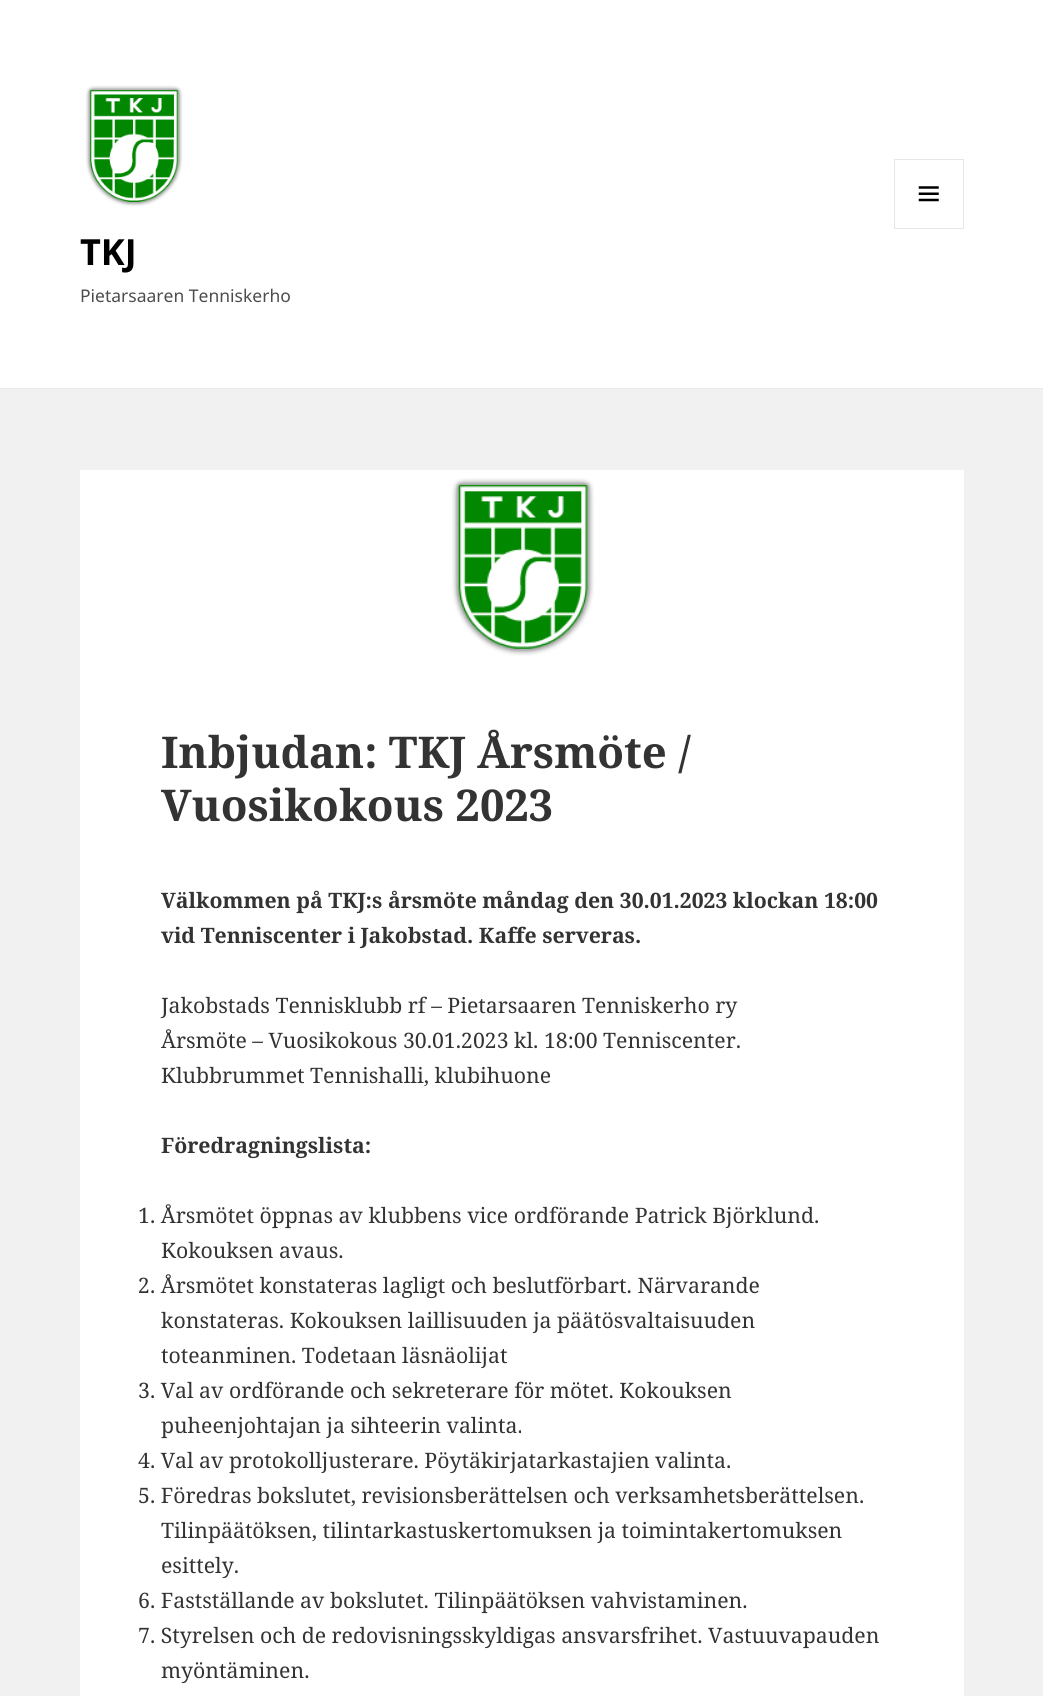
import math
import cairo



def draw_image(context, path, x, y, w, h):
    context.save()
    context.set_source_surface(cairo.ImageSurface.create_from_png(path), x, y)
    context.rectangle(x, y, w, h)
    context.fill()
    context.restore()


def draw(context):
    context.set_source_rgb(241 / 255, 241 / 255, 241 / 255)
    context.paint()
    context.set_source_rgb(1, 1, 1)
    context.rectangle(0, 0, 1043, 388)
    context.fill()
    context.set_source_rgb(235 / 255, 235 / 255, 235 / 255)
    context.rectangle(0, 388, 1043, 1)
    context.fill()
    draw_image(context, "images/1.png", 85, 85, 98, 122)
    context.rectangle(894.5, 159.5, 69, 69)
    context.set_source_rgb(230 / 255, 230 / 255, 230 / 255)
    context.set_line_width(1)
    context.stroke()
    draw_image(context, "images/2.png", 918, 186, 21, 16)
    context.set_source_rgb(1, 1, 1)
    context.rectangle(80, 470, 884, 1226)
    context.fill()
    draw_image(context, "images/3.png", 452, 478, 142, 178)
    context.select_font_face("Noto Sans", cairo.FontSlant.NORMAL, cairo.FontWeight.BOLD)
    context.set_font_size(36)
    context.set_source_rgb(0, 0, 0)
    context.move_to(80, 265)
    context.show_text("TKJ")
    context.select_font_face("Noto Sans")
    context.set_font_size(17.5)
    context.set_source_rgb(77 / 255, 77 / 255, 77 / 255)
    context.move_to(80, 302)
    context.show_text("Pietarsaaren Tenniskerho")
    context.select_font_face("Noto Serif", cairo.FontSlant.NORMAL, cairo.FontWeight.BOLD)
    context.set_font_size(43.75)
    context.set_source_rgb(51 / 255, 51 / 255, 51 / 255)
    context.move_to(161, 768)
    context.show_text("Inbjudan: TKJ Årsmöte /")
    context.move_to(161, 821)
    context.show_text("Vuosikokous 2023")
    context.set_font_size(21.25)
    context.move_to(161, 908)
    context.show_text("Välkommen på TKJ:s årsmöte måndag den 30.01.2023 klockan 18:00")
    context.move_to(161, 943)
    context.show_text("vid Tenniscenter i Jakobstad. Kaffe serveras.")
    context.select_font_face("Noto Serif")
    context.move_to(161, 1013)
    context.show_text("Jakobstads Tennisklubb rf – Pietarsaaren Tenniskerho ry")
    context.move_to(161, 1048)
    context.show_text("Årsmöte – Vuosikokous 30.01.2023 kl. 18:00 Tenniscenter.")
    context.move_to(161, 1083)
    context.show_text("Klubbrummet Tennishalli, klubihuone")
    context.select_font_face("Noto Serif", cairo.FontSlant.NORMAL, cairo.FontWeight.BOLD)
    context.move_to(161, 1153)
    context.show_text("Föredragningslista:")
    context.select_font_face("Noto Serif")
    context.move_to(138, 1223)
    context.show_text("1. Årsmötet öppnas av klubbens vice ordförande Patrick Björklund.")
    context.move_to(161, 1258)
    context.show_text("Kokouksen avaus.")
    context.move_to(138, 1293)
    context.show_text("2. Årsmötet konstateras lagligt och beslutförbart. Närvarande")
    context.move_to(161, 1328)
    context.show_text("konstateras. Kokouksen laillisuuden ja päätösvaltaisuuden")
    context.move_to(161, 1363)
    context.show_text("toteanminen. Todetaan läsnäolijat")
    context.move_to(138, 1398)
    context.show_text("3. Val av ordförande och sekreterare för mötet. Kokouksen")
    context.move_to(161, 1433)
    context.show_text("puheenjohtajan ja sihteerin valinta.")
    context.move_to(138, 1468)
    context.show_text("4. Val av protokolljusterare. Pöytäkirjatarkastajien valinta.")
    context.move_to(138, 1503)
    context.show_text("5. Föredras bokslutet, revisionsberättelsen och verksamhetsberättelsen.")
    context.move_to(161, 1538)
    context.show_text("Tilinpäätöksen, tilintarkastuskertomuksen ja toimintakertomuksen")
    context.move_to(161, 1573)
    context.show_text("esittely.")
    context.move_to(138, 1608)
    context.show_text("6. Fastställande av bokslutet. Tilinpäätöksen vahvistaminen.")
    context.move_to(138, 1643)
    context.show_text("7. Styrelsen och de redovisningsskyldigas ansvarsfrihet. Vastuuvapauden")
    context.move_to(161, 1678)
    context.show_text("myöntäminen.")


surface = cairo.ImageSurface(cairo.Format.RGB24, 1043, 1696)
context = cairo.Context(surface)
options = cairo.FontOptions()
options.set_hint_metrics(cairo.HintMetrics.OFF)
options.set_hint_style(cairo.HintStyle.NONE)
context.set_font_options(options)
context.set_miter_limit(4)
draw(context)
surface.write_to_png("out.png")
